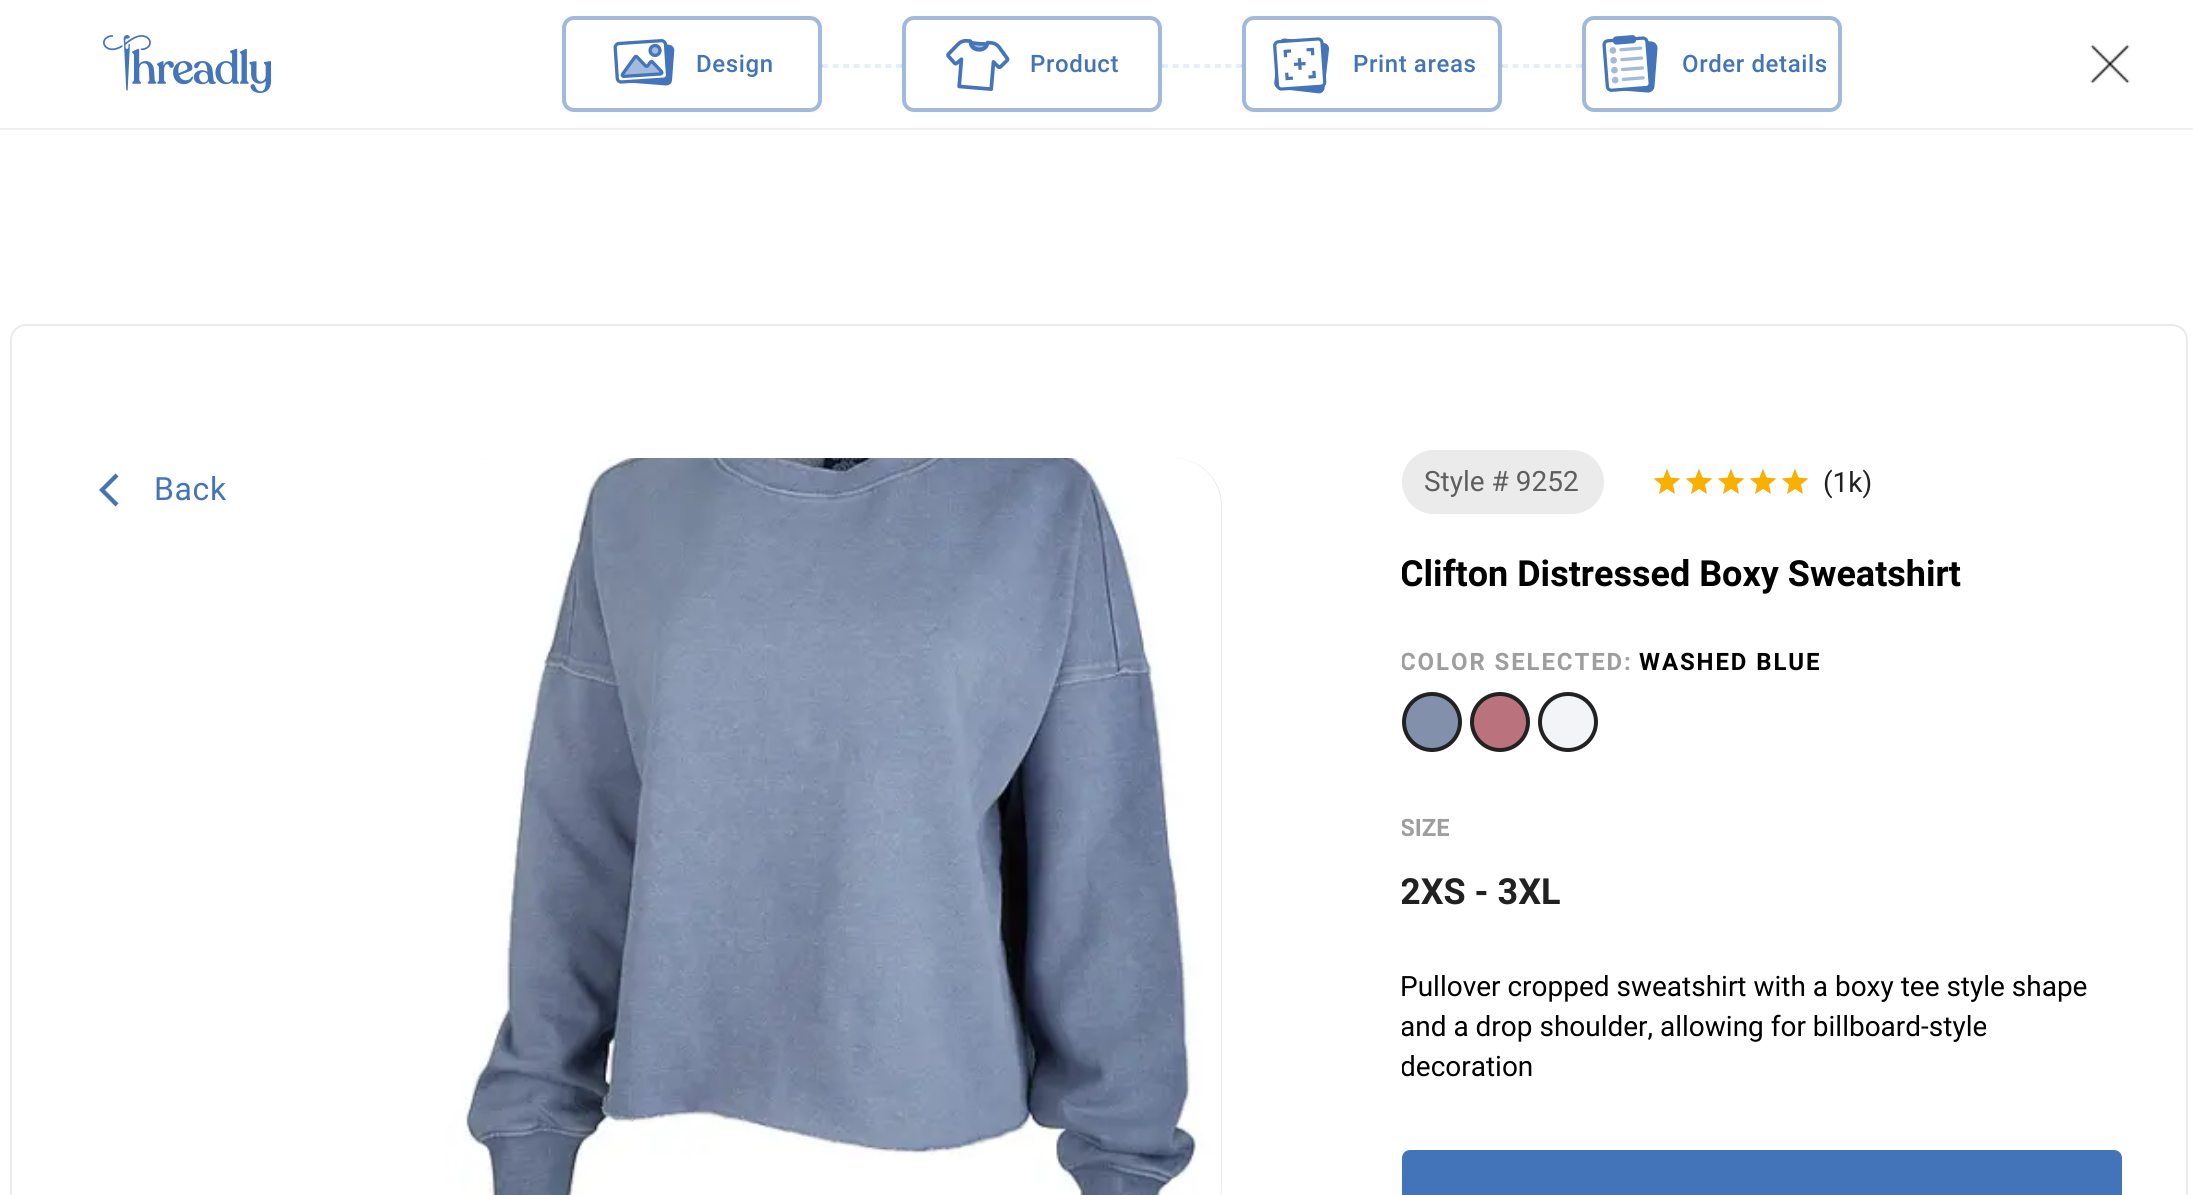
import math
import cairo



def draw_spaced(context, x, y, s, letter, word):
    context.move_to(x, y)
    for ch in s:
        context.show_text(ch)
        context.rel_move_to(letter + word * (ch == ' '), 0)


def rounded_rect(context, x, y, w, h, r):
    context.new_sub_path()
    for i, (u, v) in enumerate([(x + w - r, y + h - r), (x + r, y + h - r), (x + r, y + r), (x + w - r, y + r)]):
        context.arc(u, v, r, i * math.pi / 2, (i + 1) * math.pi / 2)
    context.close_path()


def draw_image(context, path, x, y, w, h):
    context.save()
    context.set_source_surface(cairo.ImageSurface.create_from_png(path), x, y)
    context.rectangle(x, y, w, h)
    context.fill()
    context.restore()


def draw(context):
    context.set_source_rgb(1, 1, 1)
    context.paint()
    draw_image(context, "images/1.png", 103, 35, 169, 58)
    rounded_rect(context, 564, 18, 256, 92, 10)
    context.set_source_rgb(161 / 255, 186 / 255, 220 / 255)
    context.set_line_width(4)
    context.stroke()
    draw_image(context, "images/2.png", 613, 39, 62, 47)
    context.new_path()
    context.move_to(822, 65)
    context.line_to(902, 65)
    context.set_source_rgb(232 / 255, 238 / 255, 247 / 255)
    context.set_line_width(2)
    context.set_dash([6, 4.58])
    context.stroke()
    context.set_source_rgba(67 / 255, 116 / 255, 185 / 255, 0.12)
    context.new_path()
    context.move_to(902, 64)
    context.line_to(902, 68)
    context.line_to(900, 66)
    context.close_path()
    context.fill()
    context.new_path()
    context.move_to(822, 67)
    context.line_to(902, 67)
    context.stroke()
    context.set_source_rgb(212 / 255, 223 / 255, 239 / 255)
    context.new_path()
    context.move_to(822, 68)
    context.line_to(822, 64)
    context.line_to(824, 66)
    context.close_path()
    context.fill()
    rounded_rect(context, 904, 18, 256, 92, 10)
    context.set_source_rgb(161 / 255, 186 / 255, 220 / 255)
    context.set_line_width(4)
    context.set_dash([])
    context.stroke()
    draw_image(context, "images/3.png", 946, 39, 64, 52)
    context.new_path()
    context.move_to(1162, 65)
    context.line_to(1242, 65)
    context.set_source_rgb(232 / 255, 238 / 255, 247 / 255)
    context.set_line_width(2)
    context.set_dash([6, 4.58])
    context.stroke()
    context.set_source_rgba(67 / 255, 116 / 255, 185 / 255, 0.12)
    context.new_path()
    context.move_to(1242, 64)
    context.line_to(1242, 68)
    context.line_to(1240, 66)
    context.close_path()
    context.fill()
    context.new_path()
    context.move_to(1162, 67)
    context.line_to(1242, 67)
    context.stroke()
    context.set_source_rgb(212 / 255, 223 / 255, 239 / 255)
    context.new_path()
    context.move_to(1162, 68)
    context.line_to(1162, 64)
    context.line_to(1164, 66)
    context.close_path()
    context.fill()
    rounded_rect(context, 1244, 18, 256, 92, 10)
    context.set_source_rgb(161 / 255, 186 / 255, 220 / 255)
    context.set_line_width(4)
    context.set_dash([])
    context.stroke()
    draw_image(context, "images/4.png", 1273, 37, 57, 57)
    context.new_path()
    context.move_to(1502, 65)
    context.line_to(1582, 65)
    context.set_source_rgb(232 / 255, 238 / 255, 247 / 255)
    context.set_line_width(2)
    context.set_dash([6, 4.58])
    context.stroke()
    context.set_source_rgba(67 / 255, 116 / 255, 185 / 255, 0.12)
    context.new_path()
    context.move_to(1582, 64)
    context.line_to(1582, 68)
    context.line_to(1580, 66)
    context.close_path()
    context.fill()
    context.new_path()
    context.move_to(1502, 67)
    context.line_to(1582, 67)
    context.stroke()
    context.set_source_rgb(212 / 255, 223 / 255, 239 / 255)
    context.new_path()
    context.move_to(1502, 68)
    context.line_to(1502, 64)
    context.line_to(1504, 66)
    context.close_path()
    context.fill()
    rounded_rect(context, 1584, 18, 256, 92, 10)
    context.set_source_rgb(161 / 255, 186 / 255, 220 / 255)
    context.set_line_width(4)
    context.set_dash([])
    context.stroke()
    draw_image(context, "images/5.png", 1602, 35, 56, 58)
    draw_image(context, "images/6.png", 2090, 44, 40, 40)
    context.set_source_rgb(239 / 255, 239 / 255, 239 / 255)
    context.rectangle(0, 128, 2193, 2)
    context.fill()
    rounded_rect(context, 11, 325, 2176, 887, 15)
    context.set_source_rgb(235 / 255, 235 / 255, 235 / 255)
    context.set_line_width(2)
    context.stroke()
    context.set_source_rgb(67 / 255, 116 / 255, 185 / 255)
    context.new_path()
    context.move_to(118.5, 476.5)
    context.line_to(115.5, 473.5)
    context.line_to(99, 490)
    context.line_to(115.5, 506.5)
    context.line_to(118.5, 503.5)
    context.line_to(105, 490)
    context.close_path()
    context.fill()
    context.set_source_rgb(235 / 255, 235 / 255, 235 / 255)
    rounded_rect(context, 444, 458, 778, 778, 48)
    context.fill()
    draw_image(context, "images/7.png", 444, 458, 777, 737)
    rounded_rect(context, 1402, 450, 202, 64, 32)
    context.fill()
    context.set_source_rgb(250 / 255, 175 / 255, 0)
    context.new_path()
    context.move_to(1667, 489)
    context.line_to(1675, 494)
    context.line_to(1673, 484.5)
    context.line_to(1680.5, 478.5)
    context.line_to(1670.5, 477.5)
    context.line_to(1667, 468.5)
    context.line_to(1663.5, 477.5)
    context.line_to(1653.5, 478.5)
    context.line_to(1661, 484.5)
    context.line_to(1659, 494)
    context.close_path()
    context.move_to(1699, 489)
    context.line_to(1707, 494)
    context.line_to(1705, 484.5)
    context.line_to(1712.5, 478.5)
    context.line_to(1702.5, 477.5)
    context.line_to(1699, 468.5)
    context.line_to(1695.5, 477.5)
    context.line_to(1685.5, 478.5)
    context.line_to(1693, 484.5)
    context.line_to(1691, 494)
    context.close_path()
    context.fill()
    context.new_path()
    context.move_to(1731, 489)
    context.line_to(1739, 494)
    context.line_to(1737, 484.5)
    context.line_to(1744.5, 478.5)
    context.line_to(1734.5, 477.5)
    context.line_to(1731, 468.5)
    context.line_to(1727.5, 477.5)
    context.line_to(1717.5, 478.5)
    context.line_to(1725, 484.5)
    context.line_to(1723, 494)
    context.close_path()
    context.move_to(1763, 489)
    context.line_to(1771, 494)
    context.line_to(1769, 484.5)
    context.line_to(1776.5, 478.5)
    context.line_to(1766.5, 477.5)
    context.line_to(1763, 468.5)
    context.line_to(1759.5, 477.5)
    context.line_to(1749.5, 478.5)
    context.line_to(1757, 484.5)
    context.line_to(1755, 494)
    context.close_path()
    context.fill()
    context.new_path()
    context.move_to(1795, 489)
    context.line_to(1803, 494)
    context.line_to(1801, 484.5)
    context.line_to(1808.5, 478.5)
    context.line_to(1798.5, 477.5)
    context.line_to(1795, 468.5)
    context.line_to(1791.5, 477.5)
    context.line_to(1781.5, 478.5)
    context.line_to(1789, 484.5)
    context.line_to(1787, 494)
    context.close_path()
    context.fill()
    context.set_source_rgb(131 / 255, 144 / 255, 171 / 255)
    context.arc(1432, 722, 28, 0, 2 * math.pi)
    context.fill_preserve()
    context.set_source_rgb(34 / 255, 34 / 255, 34 / 255)
    context.set_line_width(4)
    context.stroke()
    context.set_source_rgb(186 / 255, 114 / 255, 125 / 255)
    context.arc(1500, 722, 28, 0, 2 * math.pi)
    context.fill_preserve()
    context.set_source_rgb(34 / 255, 34 / 255, 34 / 255)
    context.stroke()
    context.set_source_rgb(243 / 255, 244 / 255, 248 / 255)
    context.arc(1568, 722, 28, 0, 2 * math.pi)
    context.fill_preserve()
    context.set_source_rgb(34 / 255, 34 / 255, 34 / 255)
    context.stroke()
    context.set_source_rgb(67 / 255, 116 / 255, 185 / 255)
    rounded_rect(context, 1403, 1151, 718, 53, 7)
    context.fill_preserve()
    context.set_line_width(2)
    context.stroke()
    context.select_font_face("Roboto Medium")
    context.set_font_size(24)
    draw_spaced(context, 696, 72, "Design", 0.6, 0)
    draw_spaced(context, 1030, 72, "Product", 0.6, 0)
    draw_spaced(context, 1353, 72, "Print areas", 0.6, 0)
    draw_spaced(context, 1682, 72, "Order details", 0.6, 0)
    context.select_font_face("Roboto")
    context.set_font_size(32)
    draw_spaced(context, 154, 500, "Back", 0.6, 0)
    context.set_font_size(28)
    context.set_source_rgb(94 / 255, 94 / 255, 94 / 255)
    context.move_to(1424, 491)
    context.show_text("Style # 9252")
    context.set_source_rgb(33 / 255, 33 / 255, 33 / 255)
    context.move_to(1823, 492)
    context.show_text("(1k)")
    context.save()
    context.rectangle(1402, 418, 720, 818)
    context.clip()
    context.select_font_face("Roboto", cairo.FontSlant.NORMAL, cairo.FontWeight.BOLD)
    context.set_font_size(36)
    context.set_source_rgb(0, 0, 0)
    context.move_to(1400, 586)
    context.show_text("Clifton Distressed Boxy Sweatshirt")
    context.set_font_size(24)
    context.set_source_rgb(158 / 255, 158 / 255, 158 / 255)
    draw_spaced(context, 1400, 670, "COLOR SELECTED:", 1.9, 0)
    context.restore()
    context.select_font_face("Roboto", cairo.FontSlant.NORMAL, cairo.FontWeight.BOLD)
    context.set_font_size(24)
    context.set_source_rgb(0, 0, 0)
    draw_spaced(context, 1639, 670, "WASHED BLUE", 1.9, 0)
    context.save()
    context.rectangle(1402, 418, 720, 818)
    context.clip()
    context.set_source_rgb(158 / 255, 158 / 255, 158 / 255)
    context.move_to(1400, 836)
    context.show_text("SIZE")
    context.set_font_size(36)
    context.set_source_rgb(33 / 255, 33 / 255, 33 / 255)
    context.move_to(1400, 904)
    context.show_text("2XS - 3XL")
    context.restore()
    context.select_font_face("Roboto")
    context.set_font_size(28)
    context.move_to(1400, 996)
    context.show_text("Pullover cropped sweatshirt with a boxy tee style shape")
    context.save()
    context.rectangle(1402, 418, 720, 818)
    context.clip()
    context.move_to(1400, 1036)
    context.show_text("and a drop shoulder, allowing for billboard-style")
    context.move_to(1400, 1076)
    context.show_text("decoration")
    context.restore()


surface = cairo.ImageSurface(cairo.Format.RGB24, 2193, 1195)
context = cairo.Context(surface)
options = cairo.FontOptions()
options.set_hint_metrics(cairo.HintMetrics.OFF)
options.set_hint_style(cairo.HintStyle.NONE)
context.set_font_options(options)
context.set_miter_limit(4)
draw(context)
surface.write_to_png("out.png")
